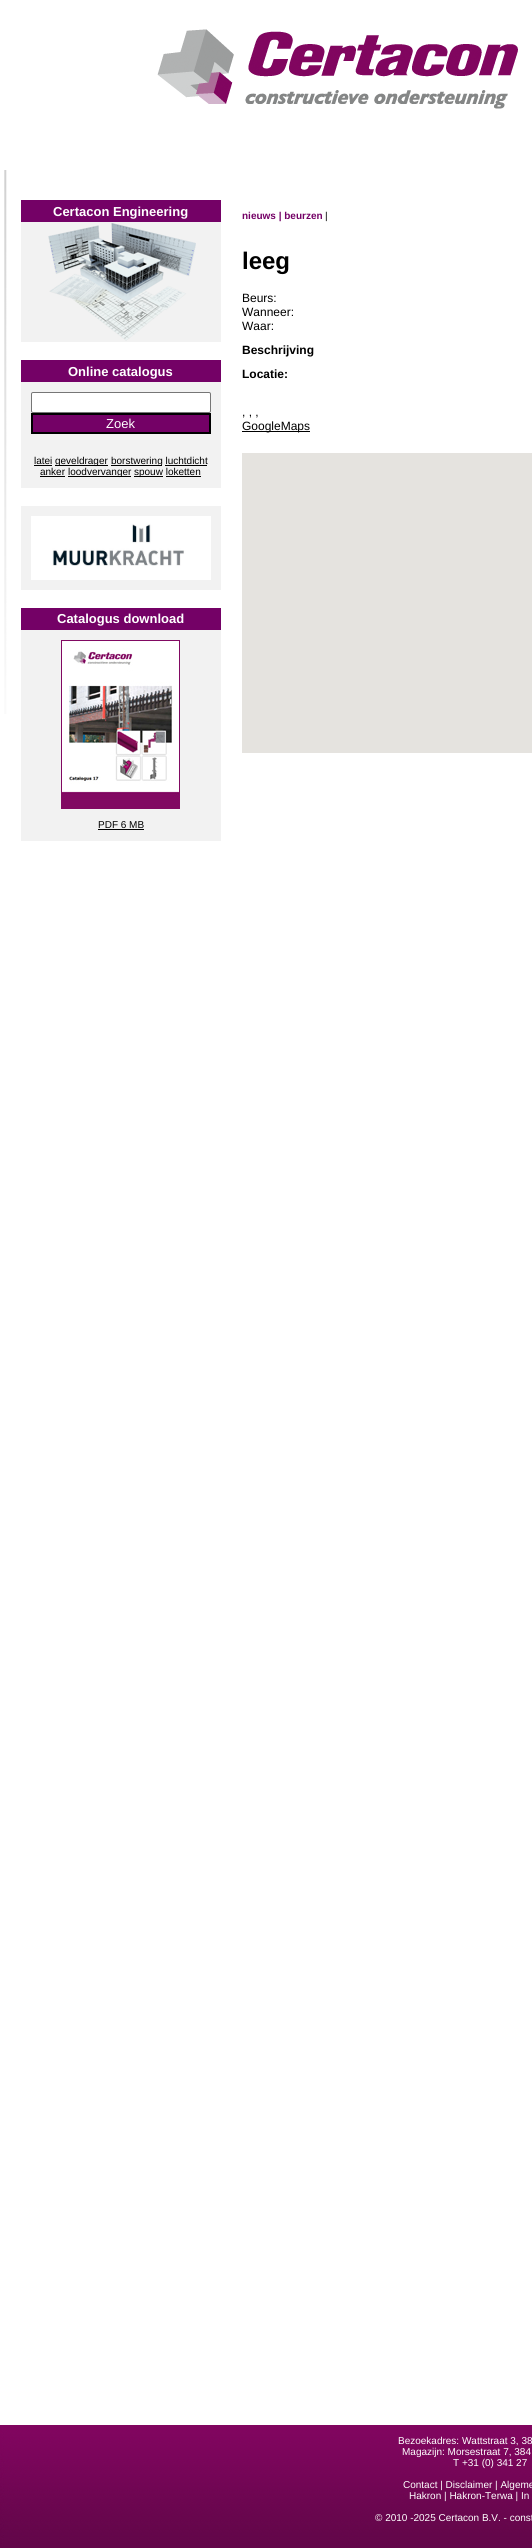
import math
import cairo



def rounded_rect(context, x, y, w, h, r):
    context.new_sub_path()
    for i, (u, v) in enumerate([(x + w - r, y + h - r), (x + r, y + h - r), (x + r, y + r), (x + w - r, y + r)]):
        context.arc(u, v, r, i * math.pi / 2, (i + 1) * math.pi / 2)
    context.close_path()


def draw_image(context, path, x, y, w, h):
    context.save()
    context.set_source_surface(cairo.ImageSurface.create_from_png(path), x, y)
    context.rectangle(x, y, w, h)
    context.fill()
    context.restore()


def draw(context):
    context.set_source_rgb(1, 1, 1)
    context.paint()
    draw_image(context, "images/1.png", 4, 170, 3, 544)
    draw_image(context, "images/2.png", 157, 29, 361, 80)
    context.set_source_rgb(116 / 255, 1 / 255, 102 / 255)
    context.rectangle(21, 200, 200, 22)
    context.fill()
    context.set_source_rgb(242 / 255, 242 / 255, 242 / 255)
    context.rectangle(21, 222, 200, 120)
    context.fill()
    draw_image(context, "images/3.png", 48, 223, 148, 118)
    context.set_source_rgb(116 / 255, 1 / 255, 102 / 255)
    context.rectangle(21, 360, 200, 22)
    context.fill()
    context.set_source_rgb(242 / 255, 242 / 255, 242 / 255)
    context.rectangle(21, 382, 200, 106)
    context.fill()
    context.set_source_rgb(1, 1, 1)
    rounded_rect(context, 31.5, 392.5, 179, 20, 1.5)
    context.fill_preserve()
    context.set_source_rgb(118 / 255, 118 / 255, 118 / 255)
    context.set_line_width(1)
    context.stroke()
    context.set_source_rgb(116 / 255, 1 / 255, 102 / 255)
    context.rectangle(32, 414, 178, 19)
    context.fill_preserve()
    context.set_source_rgb(0, 0, 0)
    context.set_line_width(2)
    context.stroke()
    context.rectangle(34, 465, 18, 1)
    context.fill()
    context.rectangle(55, 465, 53, 1)
    context.fill()
    context.rectangle(111, 465, 51, 1)
    context.fill()
    context.rectangle(165, 465, 42, 1)
    context.fill()
    context.rectangle(40, 476, 25, 1)
    context.fill()
    context.rectangle(68, 476, 63, 1)
    context.fill()
    context.rectangle(134, 476, 29, 1)
    context.fill()
    context.rectangle(166, 476, 35, 1)
    context.fill()
    context.set_source_rgb(242 / 255, 242 / 255, 242 / 255)
    context.rectangle(21, 506, 200, 84)
    context.fill()
    draw_image(context, "images/4.png", 31, 516, 180, 64)
    context.set_source_rgb(116 / 255, 1 / 255, 102 / 255)
    context.rectangle(21, 608, 200, 22)
    context.fill()
    context.set_source_rgb(242 / 255, 242 / 255, 242 / 255)
    context.rectangle(21, 630, 200, 211)
    context.fill()
    draw_image(context, "images/5.png", 61, 640, 119, 169)
    context.set_source_rgb(0, 0, 0)
    context.rectangle(98, 829, 46, 1)
    context.fill()
    context.rectangle(242, 431, 68, 1)
    context.fill()
    context.set_source_rgb(229 / 255, 227 / 255, 223 / 255)
    context.rectangle(242, 453, 290, 300)
    context.fill()
    draw_image(context, "images/6.png", 0, 2425, 4, 123)
    draw_image(context, "images/7.png", 4, 2425, 528, 123)
    context.select_font_face("Liberation Sans", cairo.FontSlant.NORMAL, cairo.FontWeight.BOLD)
    context.set_font_size(13)
    context.set_source_rgb(1, 1, 1)
    context.move_to(53, 216)
    context.show_text("Certacon Engineering")
    context.move_to(68, 376)
    context.show_text("Online catalogus")
    context.select_font_face("Liberation Sans")
    context.move_to(106, 428)
    context.show_text("Zoek")
    context.set_font_size(10)
    context.set_source_rgb(0, 0, 0)
    context.move_to(34, 464)
    context.show_text("latei")
    context.move_to(55, 464)
    context.show_text("geveldrager")
    context.move_to(111, 464)
    context.show_text("borstwering luchtdicht")
    context.move_to(40, 475)
    context.show_text("anker")
    context.move_to(68, 475)
    context.show_text("loodvervanger")
    context.move_to(134, 475)
    context.show_text("spouw loketten")
    context.select_font_face("Liberation Sans", cairo.FontSlant.NORMAL, cairo.FontWeight.BOLD)
    context.set_font_size(13)
    context.set_source_rgb(1, 1, 1)
    context.move_to(57, 623)
    context.show_text("Catalogus download")
    context.select_font_face("Liberation Sans")
    context.set_font_size(10)
    context.set_source_rgb(0, 0, 0)
    context.move_to(98, 828)
    context.show_text("PDF 6 MB")
    context.select_font_face("Liberation Sans", cairo.FontSlant.NORMAL, cairo.FontWeight.BOLD)
    context.set_source_rgb(116 / 255, 1 / 255, 102 / 255)
    context.move_to(242, 219)
    context.show_text("nieuws | beurzen")
    context.select_font_face("Liberation Sans")
    context.set_source_rgb(0, 0, 0)
    context.move_to(325, 219)
    context.show_text("|")
    context.select_font_face("Liberation Sans", cairo.FontSlant.NORMAL, cairo.FontWeight.BOLD)
    context.set_font_size(24)
    context.move_to(242, 269)
    context.show_text("leeg")
    context.select_font_face("Liberation Sans")
    context.set_font_size(12)
    context.move_to(242, 302)
    context.show_text("Beurs:")
    context.move_to(242, 316)
    context.show_text("Wanneer:")
    context.move_to(242, 330)
    context.show_text("Waar:")
    context.select_font_face("Liberation Sans", cairo.FontSlant.NORMAL, cairo.FontWeight.BOLD)
    context.move_to(242, 354)
    context.show_text("Beschrijving")
    context.move_to(242, 378)
    context.show_text("Locatie:")
    context.select_font_face("Liberation Sans")
    context.move_to(242, 416)
    context.show_text(", , ,")
    context.move_to(242, 430)
    context.show_text("GoogleMaps")
    context.set_font_size(10)
    context.set_source_rgb(1, 1, 1)
    context.move_to(398, 2444)
    context.show_text("Bezoekadres: Wattstraat 3, 38")
    context.move_to(402, 2455)
    context.show_text("Magazijn: Morsestraat 7, 384")
    context.move_to(453, 2466)
    context.show_text("T +31 (0) 341 27")
    context.move_to(403, 2488)
    context.show_text("Contact | Disclaimer | Algeme")
    context.move_to(409, 2499)
    context.show_text("Hakron | Hakron-Terwa | In")
    context.move_to(375, 2521)
    context.show_text("© 2010 -2025 Certacon B.V. - const")


surface = cairo.ImageSurface(cairo.Format.RGB24, 532, 2548)
context = cairo.Context(surface)
options = cairo.FontOptions()
options.set_hint_metrics(cairo.HintMetrics.OFF)
options.set_hint_style(cairo.HintStyle.NONE)
context.set_font_options(options)
context.set_miter_limit(4)
draw(context)
surface.write_to_png("out.png")
